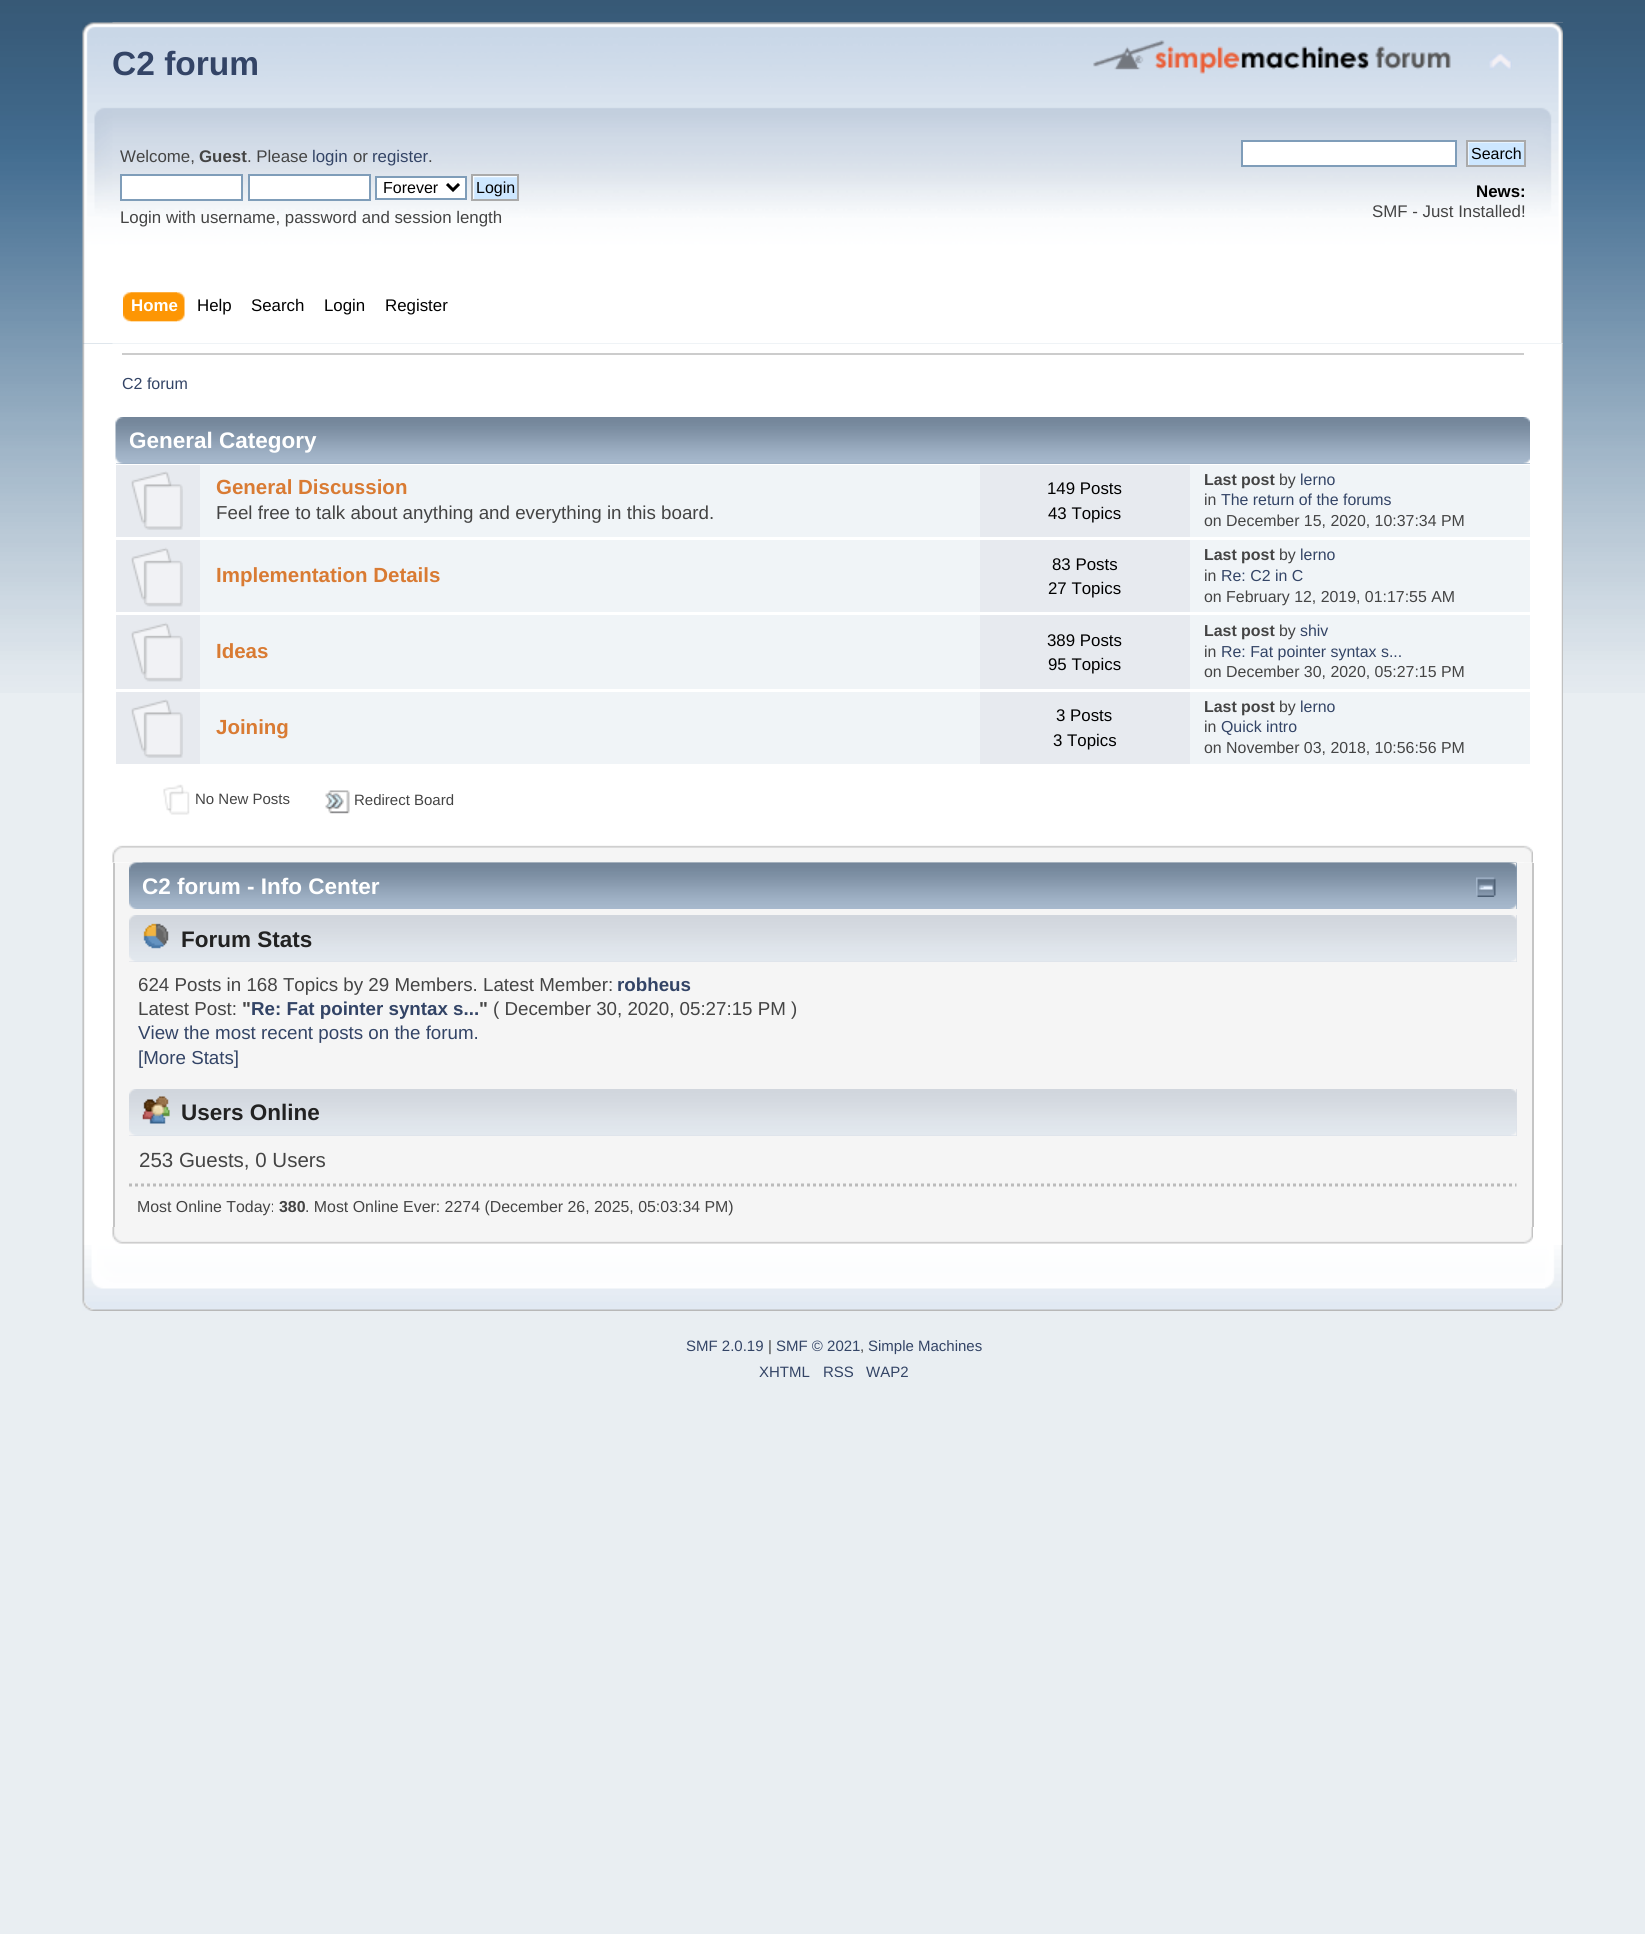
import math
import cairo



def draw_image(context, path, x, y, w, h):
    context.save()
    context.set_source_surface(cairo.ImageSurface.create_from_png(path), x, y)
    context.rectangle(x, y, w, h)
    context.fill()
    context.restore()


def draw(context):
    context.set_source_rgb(233 / 255, 238 / 255, 242 / 255)
    context.paint()
    draw_image(context, "images/1.png", 0, 0, 1645, 693)
    draw_image(context, "images/2.png", 82, 22, 1481, 322)
    draw_image(context, "images/3.png", 112, 22, 1451, 322)
    draw_image(context, "images/4.png", 1093, 40, 358, 34)
    draw_image(context, "images/5.png", 1489, 53, 23, 17)
    context.set_source_rgb(1, 1, 1)
    context.rectangle(121, 175, 121, 25)
    context.fill_preserve()
    context.set_source_rgb(127 / 255, 157 / 255, 185 / 255)
    context.stroke()
    context.set_source_rgb(1, 1, 1)
    context.rectangle(249, 175, 121, 25)
    context.fill_preserve()
    context.set_source_rgb(127 / 255, 157 / 255, 185 / 255)
    context.stroke()
    context.set_source_rgb(1, 1, 1)
    context.rectangle(376, 177, 90, 22)
    context.fill_preserve()
    context.set_source_rgb(127 / 255, 157 / 255, 185 / 255)
    context.stroke()
    context.new_path()
    context.move_to(447, 184)
    context.line_to(453, 190)
    context.line_to(459, 184)
    context.set_source_rgb(0, 0, 0)
    context.set_line_width(3)
    context.stroke()
    draw_image(context, "images/6.png", 473, 176, 44, 23)
    context.rectangle(472, 175, 46, 25)
    context.set_source_rgb(170 / 255, 170 / 255, 170 / 255)
    context.set_line_width(2)
    context.stroke()
    context.set_source_rgb(1, 1, 1)
    context.rectangle(1242, 141, 214, 25)
    context.fill_preserve()
    context.set_source_rgb(127 / 255, 157 / 255, 185 / 255)
    context.stroke()
    draw_image(context, "images/7.png", 1468, 142, 56, 23)
    context.rectangle(1467, 141, 58, 25)
    context.set_source_rgb(170 / 255, 170 / 255, 170 / 255)
    context.stroke()
    draw_image(context, "images/8.png", 130, 292, 55, 30)
    draw_image(context, "images/9.png", 123, 292, 54, 30)
    draw_image(context, "images/10.png", 82, 343, 1481, 902)
    draw_image(context, "images/11.png", 1561, 343, 2, 902)
    context.set_source_rgb(204 / 255, 204 / 255, 204 / 255)
    context.rectangle(122, 353, 1402, 2)
    context.fill()
    context.set_source_rgb(153 / 255, 171 / 255, 191 / 255)
    context.rectangle(116, 463, 1414, 1)
    context.fill()
    draw_image(context, "images/12.png", 115, 417, 1415, 47)
    draw_image(context, "images/13.png", 1523, 417, 7, 47)
    context.set_source_rgb(240 / 255, 244 / 255, 247 / 255)
    context.rectangle(200, 465, 1330, 72)
    context.fill()
    context.set_source_rgb(231 / 255, 234 / 255, 239 / 255)
    context.rectangle(116, 465, 84, 72)
    context.fill()
    draw_image(context, "images/14.png", 131, 471, 52, 59)
    context.rectangle(980, 465, 210, 72)
    context.fill()
    context.set_source_rgb(240 / 255, 244 / 255, 247 / 255)
    context.rectangle(200, 540, 1330, 72)
    context.fill()
    context.set_source_rgb(231 / 255, 234 / 255, 239 / 255)
    context.rectangle(116, 540, 84, 72)
    context.fill()
    draw_image(context, "images/15.png", 131, 547, 52, 60)
    context.rectangle(980, 540, 210, 72)
    context.fill()
    context.set_source_rgb(240 / 255, 244 / 255, 247 / 255)
    context.rectangle(200, 615, 1330, 74)
    context.fill()
    context.set_source_rgb(231 / 255, 234 / 255, 239 / 255)
    context.rectangle(116, 615, 84, 74)
    context.fill()
    draw_image(context, "images/15.png", 131, 622, 52, 60)
    context.rectangle(980, 615, 210, 74)
    context.fill()
    context.set_source_rgb(240 / 255, 244 / 255, 247 / 255)
    context.rectangle(200, 692, 1330, 72)
    context.fill()
    context.set_source_rgb(231 / 255, 234 / 255, 239 / 255)
    context.rectangle(116, 692, 84, 72)
    context.fill()
    draw_image(context, "images/14.png", 131, 699, 52, 59)
    context.rectangle(980, 692, 210, 72)
    context.fill()
    draw_image(context, "images/16.png", 163, 784, 27, 31)
    draw_image(context, "images/17.png", 325, 790, 25, 24)
    draw_image(context, "images/18.png", 112, 845, 1421, 18)
    draw_image(context, "images/19.png", 1524, 845, 9, 18)
    context.set_source_rgb(245 / 255, 245 / 255, 245 / 255)
    context.rectangle(115, 863, 1417, 364)
    context.fill()
    context.set_source_rgb(197 / 255, 197 / 255, 197 / 255)
    context.rectangle(1532, 863, 2, 364)
    context.fill()
    context.rectangle(113, 863, 2, 364)
    context.fill()
    context.set_source_rgb(153 / 255, 171 / 255, 191 / 255)
    context.rectangle(1516, 863, 1, 46)
    context.fill()
    draw_image(context, "images/20.png", 129, 862, 1388, 47)
    draw_image(context, "images/21.png", 142, 862, 1375, 47)
    draw_image(context, "images/22.png", 1476, 877, 20, 20)
    context.set_source_rgb(218 / 255, 223 / 255, 230 / 255)
    context.rectangle(129, 915, 1388, 47)
    context.fill()
    draw_image(context, "images/23.png", 129, 915, 1388, 47)
    draw_image(context, "images/24.png", 1511, 915, 6, 47)
    draw_image(context, "images/25.png", 143, 923, 26, 26)
    context.rectangle(129, 1089, 1388, 47)
    context.fill()
    draw_image(context, "images/23.png", 129, 1089, 1388, 47)
    draw_image(context, "images/24.png", 1511, 1089, 6, 47)
    draw_image(context, "images/26.png", 142, 1096, 28, 28)
    context.new_path()
    context.move_to(129, 1185)
    context.line_to(1516.5, 1185)
    context.set_source_rgb(187 / 255, 187 / 255, 187 / 255)
    context.set_line_width(3)
    context.set_dash([3, 3])
    context.stroke()
    draw_image(context, "images/27.png", 112, 1227, 1412, 17)
    draw_image(context, "images/28.png", 1524, 1227, 9, 17)
    draw_image(context, "images/29.png", 82, 1245, 1463, 66)
    draw_image(context, "images/30.png", 1545, 1245, 18, 66)
    context.select_font_face("Liberation Sans", cairo.FontSlant.NORMAL, cairo.FontWeight.BOLD)
    context.set_font_size(33.5)
    context.set_source_rgb(51 / 255, 68 / 255, 102 / 255)
    context.move_to(112, 75)
    context.show_text("C2 forum")
    context.select_font_face("Liberation Sans")
    context.set_font_size(16.85)
    context.set_source_rgb(68 / 255, 68 / 255, 68 / 255)
    context.move_to(120, 162)
    context.show_text("Welcome,")
    context.select_font_face("Liberation Sans", cairo.FontSlant.NORMAL, cairo.FontWeight.BOLD)
    context.move_to(199, 162)
    context.show_text("Guest")
    context.select_font_face("Liberation Sans")
    context.move_to(247, 162)
    context.show_text(". Please")
    context.set_source_rgb(51 / 255, 68 / 255, 102 / 255)
    context.move_to(312, 162)
    context.show_text("login")
    context.set_source_rgb(68 / 255, 68 / 255, 68 / 255)
    context.move_to(353, 162)
    context.show_text("or")
    context.set_source_rgb(51 / 255, 68 / 255, 102 / 255)
    context.move_to(372, 162)
    context.show_text("register")
    context.set_source_rgb(68 / 255, 68 / 255, 68 / 255)
    context.move_to(428, 162)
    context.show_text(".")
    context.set_font_size(16)
    context.set_source_rgb(0, 0, 0)
    context.move_to(383, 193)
    context.show_text("Forever")
    context.move_to(476, 193)
    context.show_text("Login")
    context.set_font_size(16.85)
    context.set_source_rgb(68 / 255, 68 / 255, 68 / 255)
    context.move_to(120, 223)
    context.show_text("Login with username, password and session length")
    context.set_font_size(16)
    context.set_source_rgb(0, 0, 0)
    context.move_to(1471, 159)
    context.show_text("Search")
    context.select_font_face("Liberation Sans", cairo.FontSlant.NORMAL, cairo.FontWeight.BOLD)
    context.set_font_size(16.85)
    context.move_to(1476, 197)
    context.show_text("News:")
    context.select_font_face("Liberation Sans")
    context.set_source_rgb(68 / 255, 68 / 255, 68 / 255)
    context.move_to(1372, 217)
    context.show_text("SMF - Just Installed!")
    context.select_font_face("Liberation Sans", cairo.FontSlant.NORMAL, cairo.FontWeight.BOLD)
    context.set_source_rgb(1, 1, 1)
    context.move_to(131, 311)
    context.show_text("Home")
    context.select_font_face("Liberation Sans")
    context.set_source_rgb(0, 0, 0)
    context.move_to(197, 311)
    context.show_text("Help")
    context.move_to(251, 311)
    context.show_text("Search")
    context.move_to(324, 311)
    context.show_text("Login")
    context.move_to(385, 311)
    context.show_text("Register")
    context.set_font_size(16)
    context.set_source_rgb(51 / 255, 68 / 255, 102 / 255)
    context.move_to(122, 389)
    context.show_text("C2 forum")
    context.select_font_face("Liberation Sans", cairo.FontSlant.NORMAL, cairo.FontWeight.BOLD)
    context.set_font_size(22.5)
    context.set_source_rgb(1, 1, 1)
    context.move_to(129, 448)
    context.show_text("General Category")
    context.set_font_size(20.5)
    context.set_source_rgb(217 / 255, 123 / 255, 51 / 255)
    context.move_to(216, 494)
    context.show_text("General Discussion")
    context.select_font_face("Liberation Sans")
    context.set_font_size(18.75)
    context.set_source_rgb(68 / 255, 68 / 255, 68 / 255)
    context.move_to(216, 519)
    context.show_text("Feel free to talk about anything and everything in this board.")
    context.set_font_size(16.85)
    context.set_source_rgb(0, 0, 0)
    context.move_to(1047, 494)
    context.show_text("149 Posts")
    context.move_to(1048, 519)
    context.show_text("43 Topics")
    context.select_font_face("Liberation Sans", cairo.FontSlant.NORMAL, cairo.FontWeight.BOLD)
    context.set_font_size(15.9)
    context.set_source_rgb(68 / 255, 68 / 255, 68 / 255)
    context.move_to(1204, 485)
    context.show_text("Last post")
    context.select_font_face("Liberation Sans")
    context.move_to(1279, 485)
    context.show_text("by")
    context.set_source_rgb(51 / 255, 68 / 255, 102 / 255)
    context.move_to(1300, 485)
    context.show_text("lerno")
    context.set_source_rgb(68 / 255, 68 / 255, 68 / 255)
    context.move_to(1204, 505)
    context.show_text("in")
    context.set_source_rgb(51 / 255, 68 / 255, 102 / 255)
    context.move_to(1221, 505)
    context.show_text("The return of the forums")
    context.set_source_rgb(68 / 255, 68 / 255, 68 / 255)
    context.move_to(1204, 526)
    context.show_text("on December 15, 2020, 10:37:34 PM")
    context.select_font_face("Liberation Sans", cairo.FontSlant.NORMAL, cairo.FontWeight.BOLD)
    context.set_font_size(20.5)
    context.set_source_rgb(217 / 255, 123 / 255, 51 / 255)
    context.move_to(216, 582)
    context.show_text("Implementation Details")
    context.select_font_face("Liberation Sans")
    context.set_font_size(16.85)
    context.set_source_rgb(0, 0, 0)
    context.move_to(1052, 570)
    context.show_text("83 Posts")
    context.move_to(1048, 594)
    context.show_text("27 Topics")
    context.select_font_face("Liberation Sans", cairo.FontSlant.NORMAL, cairo.FontWeight.BOLD)
    context.set_font_size(15.9)
    context.set_source_rgb(68 / 255, 68 / 255, 68 / 255)
    context.move_to(1204, 560)
    context.show_text("Last post")
    context.select_font_face("Liberation Sans")
    context.move_to(1279, 560)
    context.show_text("by")
    context.set_source_rgb(51 / 255, 68 / 255, 102 / 255)
    context.move_to(1300, 560)
    context.show_text("lerno")
    context.set_source_rgb(68 / 255, 68 / 255, 68 / 255)
    context.move_to(1204, 581)
    context.show_text("in")
    context.set_source_rgb(51 / 255, 68 / 255, 102 / 255)
    context.move_to(1221, 581)
    context.show_text("Re: C2 in C")
    context.set_source_rgb(68 / 255, 68 / 255, 68 / 255)
    context.move_to(1204, 602)
    context.show_text("on February 12, 2019, 01:17:55 AM")
    context.select_font_face("Liberation Sans", cairo.FontSlant.NORMAL, cairo.FontWeight.BOLD)
    context.set_font_size(20.5)
    context.set_source_rgb(217 / 255, 123 / 255, 51 / 255)
    context.move_to(216, 658)
    context.show_text("Ideas")
    context.select_font_face("Liberation Sans")
    context.set_font_size(16.85)
    context.set_source_rgb(0, 0, 0)
    context.move_to(1047, 646)
    context.show_text("389 Posts")
    context.move_to(1048, 670)
    context.show_text("95 Topics")
    context.select_font_face("Liberation Sans", cairo.FontSlant.NORMAL, cairo.FontWeight.BOLD)
    context.set_font_size(15.9)
    context.set_source_rgb(68 / 255, 68 / 255, 68 / 255)
    context.move_to(1204, 636)
    context.show_text("Last post")
    context.select_font_face("Liberation Sans")
    context.move_to(1279, 636)
    context.show_text("by")
    context.set_source_rgb(51 / 255, 68 / 255, 102 / 255)
    context.move_to(1300, 636)
    context.show_text("shiv")
    context.set_source_rgb(68 / 255, 68 / 255, 68 / 255)
    context.move_to(1204, 657)
    context.show_text("in")
    context.set_source_rgb(51 / 255, 68 / 255, 102 / 255)
    context.move_to(1221, 657)
    context.show_text("Re: Fat pointer syntax s...")
    context.set_source_rgb(68 / 255, 68 / 255, 68 / 255)
    context.move_to(1204, 677)
    context.show_text("on December 30, 2020, 05:27:15 PM")
    context.select_font_face("Liberation Sans", cairo.FontSlant.NORMAL, cairo.FontWeight.BOLD)
    context.set_font_size(20.5)
    context.set_source_rgb(217 / 255, 123 / 255, 51 / 255)
    context.move_to(216, 734)
    context.show_text("Joining")
    context.select_font_face("Liberation Sans")
    context.set_font_size(16.85)
    context.set_source_rgb(0, 0, 0)
    context.move_to(1056, 721)
    context.show_text("3 Posts")
    context.move_to(1053, 746)
    context.show_text("3 Topics")
    context.select_font_face("Liberation Sans", cairo.FontSlant.NORMAL, cairo.FontWeight.BOLD)
    context.set_font_size(15.9)
    context.set_source_rgb(68 / 255, 68 / 255, 68 / 255)
    context.move_to(1204, 712)
    context.show_text("Last post")
    context.select_font_face("Liberation Sans")
    context.move_to(1279, 712)
    context.show_text("by")
    context.set_source_rgb(51 / 255, 68 / 255, 102 / 255)
    context.move_to(1300, 712)
    context.show_text("lerno")
    context.set_source_rgb(68 / 255, 68 / 255, 68 / 255)
    context.move_to(1204, 732)
    context.show_text("in")
    context.set_source_rgb(51 / 255, 68 / 255, 102 / 255)
    context.move_to(1221, 732)
    context.show_text("Quick intro")
    context.set_source_rgb(68 / 255, 68 / 255, 68 / 255)
    context.move_to(1204, 753)
    context.show_text("on November 03, 2018, 10:56:56 PM")
    context.set_font_size(15)
    context.move_to(195, 804)
    context.show_text("No New Posts")
    context.move_to(354, 805)
    context.show_text("Redirect Board")
    context.select_font_face("Liberation Sans", cairo.FontSlant.NORMAL, cairo.FontWeight.BOLD)
    context.set_font_size(22.5)
    context.set_source_rgb(1, 1, 1)
    context.move_to(142, 894)
    context.show_text("C2 forum - Info Center")
    context.set_source_rgb(34 / 255, 34 / 255, 34 / 255)
    context.move_to(181, 947)
    context.show_text("Forum Stats")
    context.select_font_face("Liberation Sans")
    context.set_font_size(18.75)
    context.set_source_rgb(68 / 255, 68 / 255, 68 / 255)
    context.move_to(138, 991)
    context.show_text("624 Posts in 168 Topics by 29 Members. Latest Member:")
    context.select_font_face("Liberation Sans", cairo.FontSlant.NORMAL, cairo.FontWeight.BOLD)
    context.set_source_rgb(51 / 255, 68 / 255, 102 / 255)
    context.move_to(617, 991)
    context.show_text("robheus")
    context.select_font_face("Liberation Sans")
    context.set_source_rgb(68 / 255, 68 / 255, 68 / 255)
    context.move_to(138, 1015)
    context.show_text("Latest Post:")
    context.select_font_face("Liberation Sans", cairo.FontSlant.NORMAL, cairo.FontWeight.BOLD)
    context.move_to(242, 1015)
    context.show_text("\"")
    context.set_source_rgb(51 / 255, 68 / 255, 102 / 255)
    context.move_to(251, 1015)
    context.show_text("Re: Fat pointer syntax s...")
    context.set_source_rgb(68 / 255, 68 / 255, 68 / 255)
    context.move_to(479, 1015)
    context.show_text("\"")
    context.select_font_face("Liberation Sans")
    context.move_to(493, 1015)
    context.show_text("( December 30, 2020, 05:27:15 PM )")
    context.set_source_rgb(51 / 255, 68 / 255, 102 / 255)
    context.move_to(138, 1039)
    context.show_text("View the most recent posts on the forum.")
    context.move_to(138, 1064)
    context.show_text("[More Stats]")
    context.select_font_face("Liberation Sans", cairo.FontSlant.NORMAL, cairo.FontWeight.BOLD)
    context.set_font_size(22.5)
    context.set_source_rgb(34 / 255, 34 / 255, 34 / 255)
    context.move_to(181, 1120)
    context.show_text("Users Online")
    context.select_font_face("Liberation Sans")
    context.set_font_size(20.5)
    context.set_source_rgb(68 / 255, 68 / 255, 68 / 255)
    context.move_to(139, 1167)
    context.show_text("253 Guests, 0 Users")
    context.set_font_size(15.9)
    context.move_to(137, 1212)
    context.show_text("Most Online Today:")
    context.select_font_face("Liberation Sans", cairo.FontSlant.NORMAL, cairo.FontWeight.BOLD)
    context.move_to(279, 1212)
    context.show_text("380")
    context.select_font_face("Liberation Sans")
    context.move_to(305, 1212)
    context.show_text(". Most Online Ever: 2274 (December 26, 2025, 05:03:34 PM)")
    context.set_font_size(15)
    context.set_source_rgb(51 / 255, 68 / 255, 102 / 255)
    context.move_to(686, 1351)
    context.show_text("SMF 2.0.19")
    context.set_source_rgb(68 / 255, 68 / 255, 68 / 255)
    context.move_to(768, 1351)
    context.show_text("|")
    context.set_source_rgb(51 / 255, 68 / 255, 102 / 255)
    context.move_to(776, 1351)
    context.show_text("SMF © 2021")
    context.set_source_rgb(68 / 255, 68 / 255, 68 / 255)
    context.move_to(860, 1351)
    context.show_text(",")
    context.set_source_rgb(51 / 255, 68 / 255, 102 / 255)
    context.move_to(868, 1351)
    context.show_text("Simple Machines")
    context.move_to(759, 1377)
    context.show_text("XHTML")
    context.move_to(823, 1377)
    context.show_text("RSS")
    context.move_to(866, 1377)
    context.show_text("WAP2")


surface = cairo.ImageSurface(cairo.Format.RGB24, 1645, 1934)
context = cairo.Context(surface)
options = cairo.FontOptions()
options.set_hint_metrics(cairo.HintMetrics.OFF)
options.set_hint_style(cairo.HintStyle.NONE)
context.set_font_options(options)
context.set_miter_limit(4)
draw(context)
surface.write_to_png("out.png")
